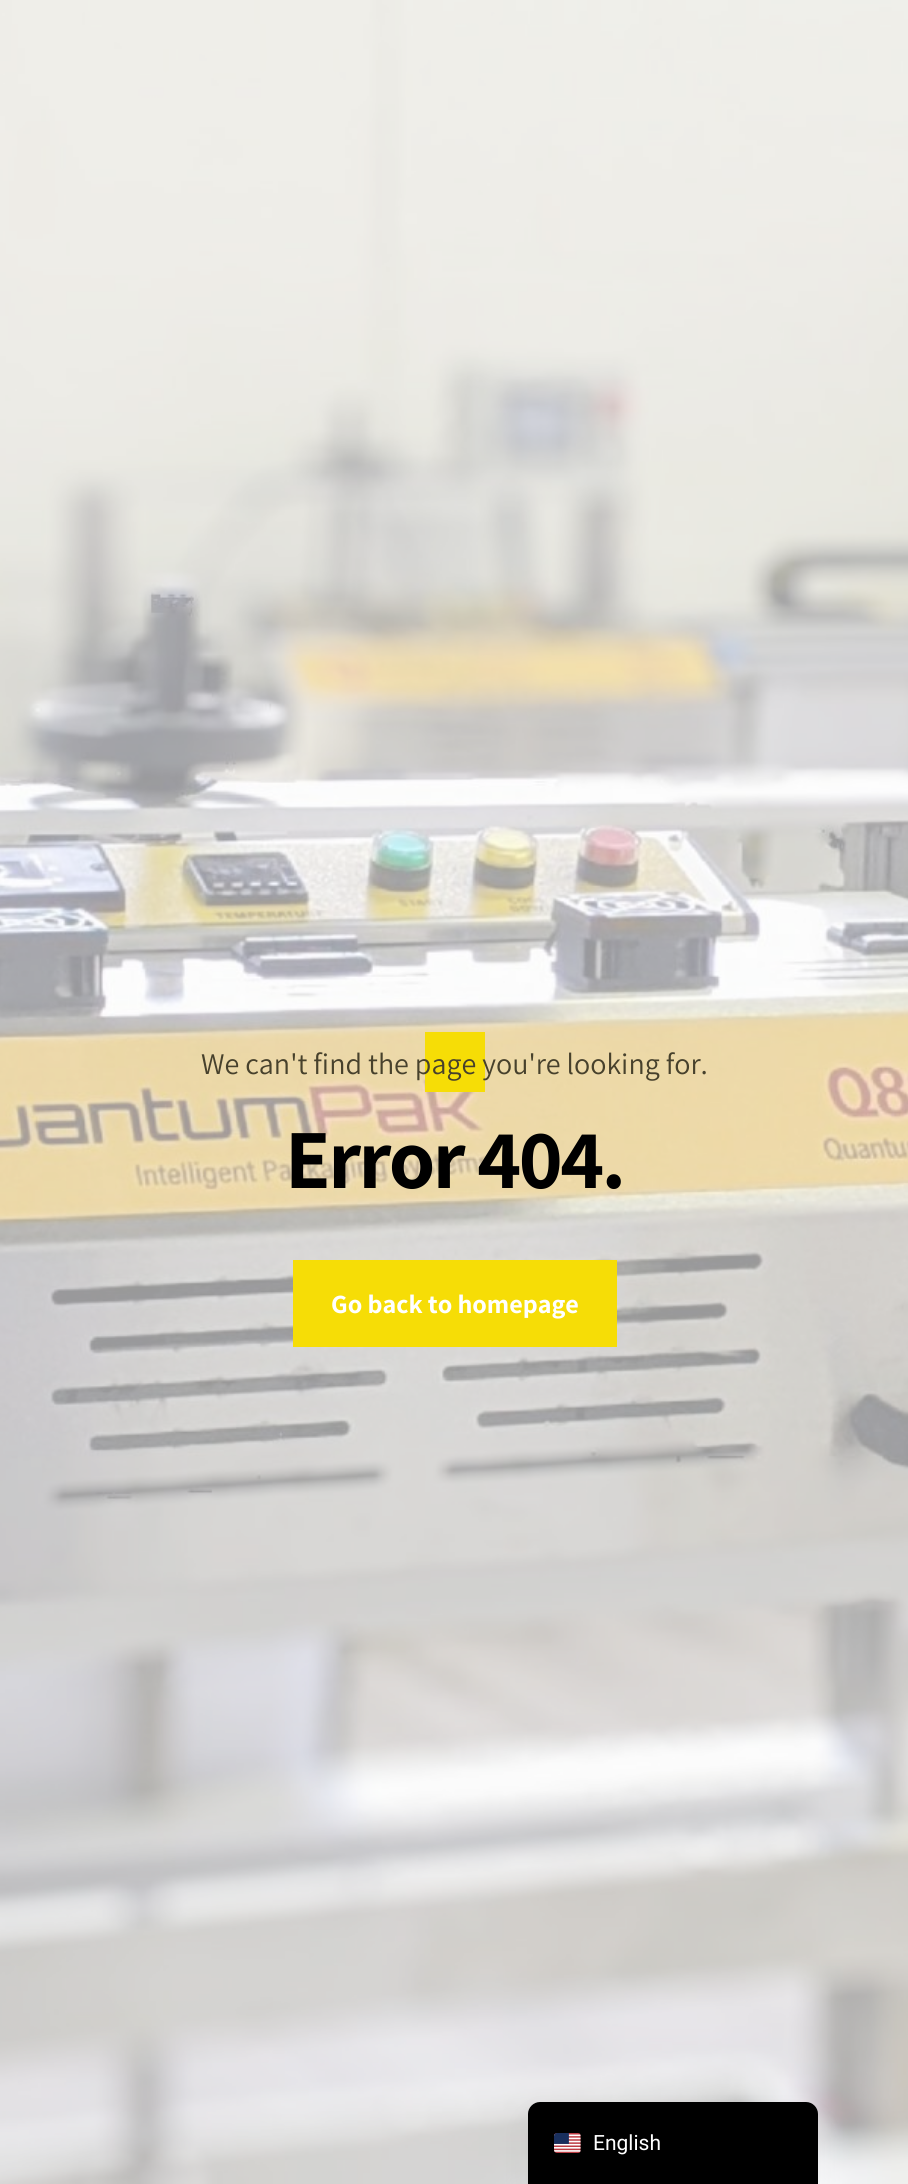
import math
import cairo



def draw_spaced(context, x, y, s, letter, word):
    context.move_to(x, y)
    for ch in s:
        context.show_text(ch)
        context.rel_move_to(letter + word * (ch == ' '), 0)


def rounded_rect(context, x, y, w, h, r):
    context.new_sub_path()
    for i, (u, v) in enumerate([(x + w - r, y + h - r), (x + r, y + h - r), (x + r, y + r), (x + w - r, y + r)]):
        context.arc(u, v, r, i * math.pi / 2, (i + 1) * math.pi / 2)
    context.close_path()


def draw_shadow(context, x, y, w, h, r, blur, alpha):
    context.push_group_with_content(cairo.Content.ALPHA)
    context.set_operator(cairo.Operator.SOURCE)
    for i in range(15, -16, -2):
        e = blur * i / 6
        if min(w, h) + 2 * e > 0:
            context.set_source_rgba(0, 0, 0, alpha * math.erfc((i - 1) / 8.5) / 2)
            rounded_rect(context, x - e, y - e, w + 2 * e, h + 2 * e, max(0, min(r + e + blur * .6, min(w, h) / 2 + e)))
            context.fill()
    context.mask(context.pop_group())


def draw_image(context, path, x, y, w, h):
    context.save()
    context.set_source_surface(cairo.ImageSurface.create_from_png(path), x, y)
    context.rectangle(x, y, w, h)
    context.fill()
    context.restore()


def draw(context):
    context.set_source_rgb(1, 1, 1)
    context.paint()
    draw_image(context, "images/1.png", 0, 0, 908, 2184)
    context.set_source_rgb(246 / 255, 221 / 255, 6 / 255)
    context.rectangle(425, 1032, 60, 60)
    context.fill()
    context.rectangle(293, 1260, 324, 87)
    context.fill()
    context.set_source_rgb(0, 0, 0)
    draw_shadow(context, 528, 2117, 290, 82, 12, 15, 0.05)
    context.set_source_rgb(0, 0, 0)
    context.new_path()
    context.move_to(540, 2102)
    context.line_to(806, 2102)
    context.curve_to(812.5, 2102, 818, 2107.5, 818, 2114)
    context.line_to(818, 2184)
    context.line_to(528, 2184)
    context.line_to(528, 2114)
    context.curve_to(528, 2107.5, 533.5, 2102, 540, 2102)
    context.close_path()
    context.fill()
    draw_image(context, "images/2.png", 554, 2133, 27, 20)
    context.select_font_face("Assistant")
    context.set_font_size(30)
    context.set_source_rgb(71 / 255, 65 / 255, 44 / 255)
    context.move_to(201, 1074)
    context.show_text("We can't find the page you're looking for.")
    context.select_font_face("Assistant", cairo.FontSlant.NORMAL, cairo.FontWeight.BOLD)
    context.set_font_size(84)
    context.set_source_rgb(0, 0, 0)
    draw_spaced(context, 285, 1188, "Error 404.", -2.5, 0)
    context.set_font_size(26.25)
    context.set_source_rgb(1, 1, 1)
    context.move_to(331, 1313)
    context.show_text("Go back to homepage")
    context.select_font_face("Roboto")
    context.set_font_size(21)
    context.move_to(593, 2150)
    context.show_text("English")


surface = cairo.ImageSurface(cairo.Format.RGB24, 908, 2184)
context = cairo.Context(surface)
options = cairo.FontOptions()
options.set_hint_metrics(cairo.HintMetrics.OFF)
options.set_hint_style(cairo.HintStyle.NONE)
context.set_font_options(options)
context.set_miter_limit(4)
draw(context)
surface.write_to_png("out.png")
